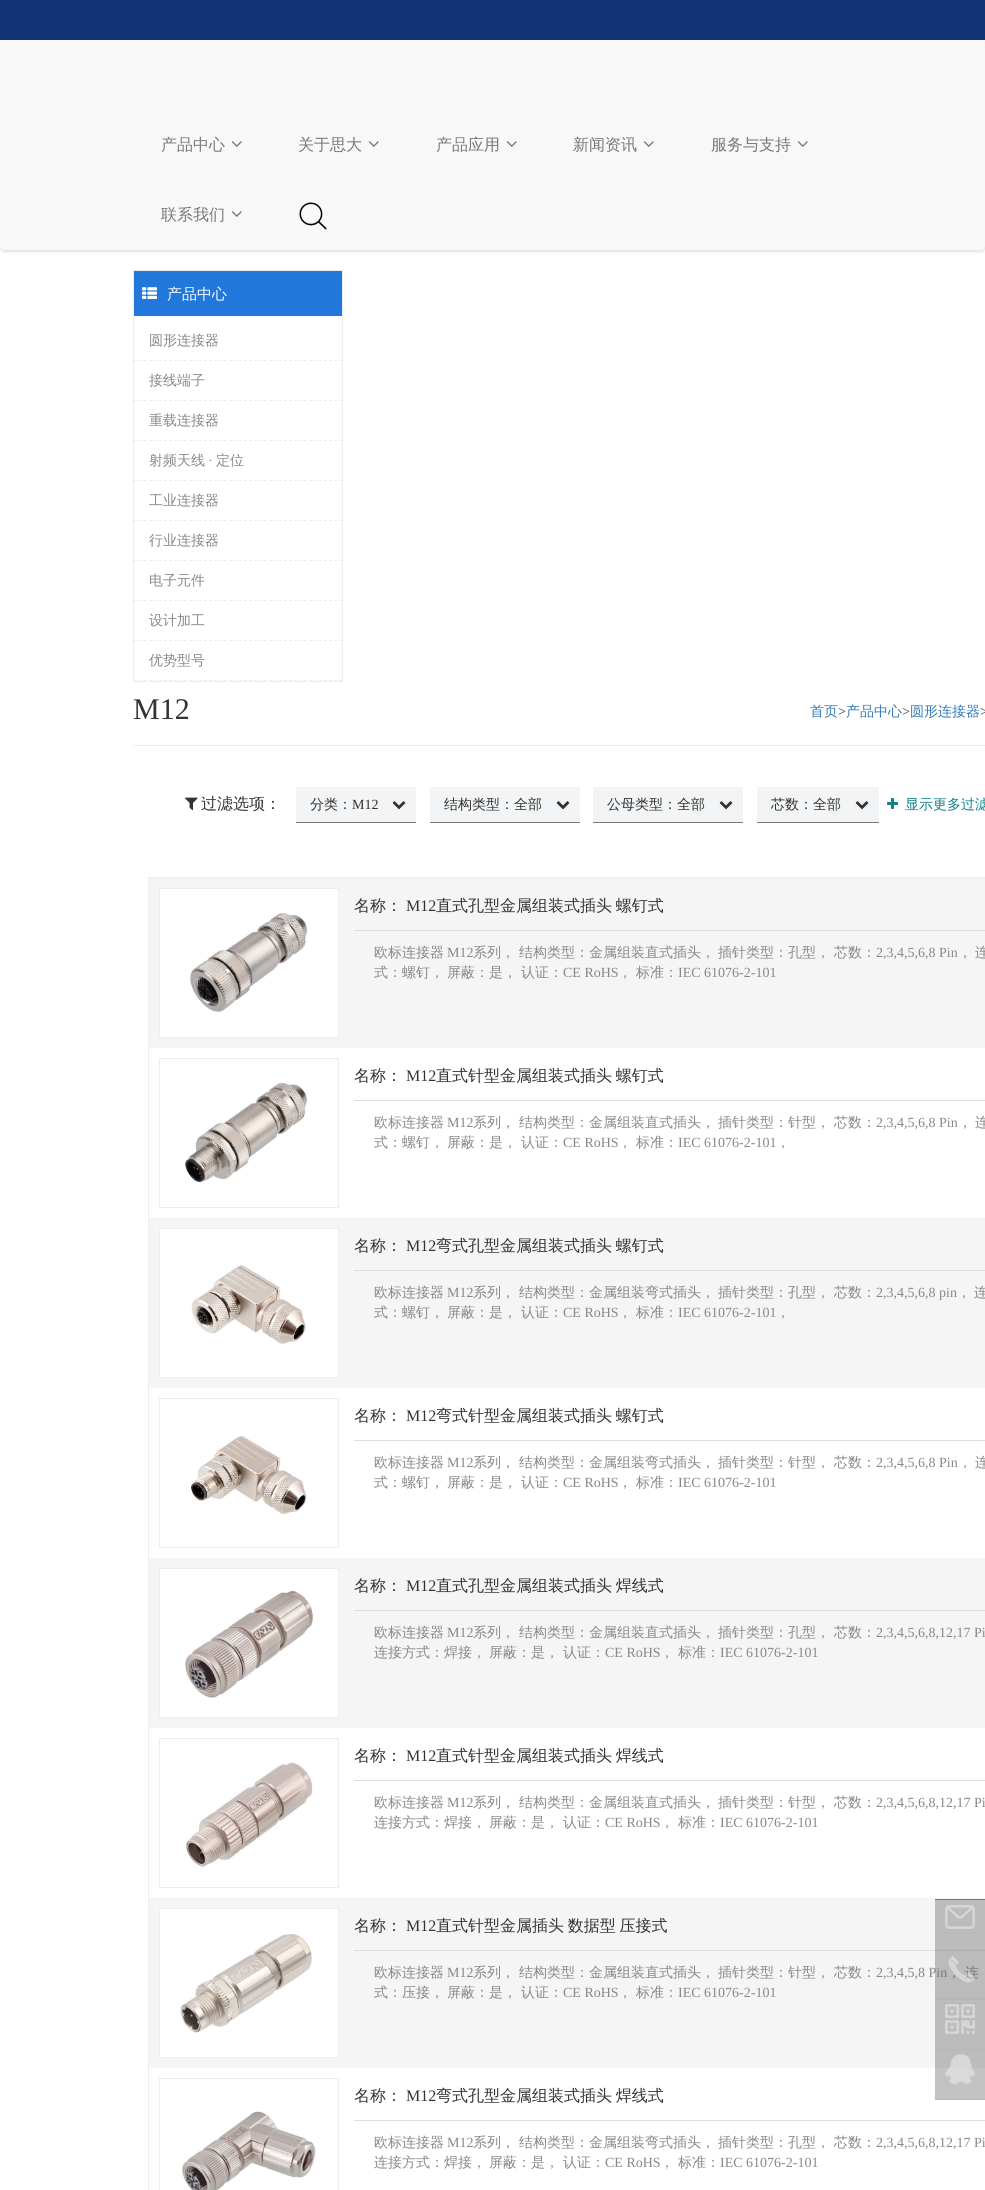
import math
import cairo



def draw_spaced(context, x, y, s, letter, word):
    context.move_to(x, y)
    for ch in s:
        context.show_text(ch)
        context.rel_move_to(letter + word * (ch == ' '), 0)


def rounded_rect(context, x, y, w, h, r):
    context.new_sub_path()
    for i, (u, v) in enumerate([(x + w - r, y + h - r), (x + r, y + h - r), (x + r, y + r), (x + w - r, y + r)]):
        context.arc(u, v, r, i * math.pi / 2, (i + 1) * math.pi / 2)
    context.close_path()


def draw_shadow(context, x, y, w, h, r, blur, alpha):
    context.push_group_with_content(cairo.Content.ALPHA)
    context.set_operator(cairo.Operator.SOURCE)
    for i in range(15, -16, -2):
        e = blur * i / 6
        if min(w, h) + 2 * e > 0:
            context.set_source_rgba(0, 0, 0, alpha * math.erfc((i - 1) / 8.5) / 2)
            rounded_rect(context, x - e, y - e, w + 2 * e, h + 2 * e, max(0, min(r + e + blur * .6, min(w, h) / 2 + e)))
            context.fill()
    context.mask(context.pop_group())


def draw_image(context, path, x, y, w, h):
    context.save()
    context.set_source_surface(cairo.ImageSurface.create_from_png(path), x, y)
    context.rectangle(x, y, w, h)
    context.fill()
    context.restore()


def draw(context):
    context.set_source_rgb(1, 1, 1)
    context.paint()
    context.set_source_rgb(194 / 255, 194 / 255, 194 / 255)
    context.rectangle(935, 2068, 50, 31)
    context.fill()
    context.set_source_rgb(19 / 255, 53 / 255, 120 / 255)
    context.rectangle(0, 0, 985, 40)
    context.fill()
    context.set_source_rgb(0, 0, 0)
    draw_shadow(context, 0, 41, 985, 210, 4, 2, 0.18)
    context.set_source_rgb(248 / 255, 248 / 255, 248 / 255)
    rounded_rect(context, 0, 40, 985, 210, 4)
    context.fill()
    draw_image(context, "images/1.png", 231, 141, 11, 6)
    draw_image(context, "images/1.png", 368, 141, 11, 6)
    draw_image(context, "images/1.png", 506, 141, 11, 6)
    draw_image(context, "images/1.png", 643, 141, 11, 6)
    draw_image(context, "images/1.png", 797, 141, 11, 6)
    draw_image(context, "images/1.png", 231, 211, 11, 6)
    draw_image(context, "images/2.png", 299, 202, 28, 28)
    context.rectangle(133.5, 270.5, 209, 411)
    context.set_source_rgb(238 / 255, 238 / 255, 238 / 255)
    context.set_line_width(1)
    context.stroke()
    context.set_source_rgb(34 / 255, 119 / 255, 218 / 255)
    context.rectangle(134, 271, 208, 45)
    context.fill()
    draw_image(context, "images/3.png", 142, 287, 15, 12)
    context.new_path()
    context.move_to(134, 360.5)
    context.line_to(342, 360.5)
    context.set_source_rgb(238 / 255, 238 / 255, 238 / 255)
    context.set_dash([3, 2])
    context.stroke()
    context.new_path()
    context.move_to(134, 400.5)
    context.line_to(342, 400.5)
    context.stroke()
    context.new_path()
    context.move_to(134, 440.5)
    context.line_to(342, 440.5)
    context.stroke()
    context.new_path()
    context.move_to(134, 480.5)
    context.line_to(342, 480.5)
    context.stroke()
    context.new_path()
    context.move_to(134, 520.5)
    context.line_to(342, 520.5)
    context.stroke()
    context.new_path()
    context.move_to(134, 560.5)
    context.line_to(342, 560.5)
    context.stroke()
    context.new_path()
    context.move_to(134, 600.5)
    context.line_to(342, 600.5)
    context.stroke()
    context.new_path()
    context.move_to(134, 640.5)
    context.line_to(342, 640.5)
    context.stroke()
    context.new_path()
    context.move_to(134, 680.5)
    context.line_to(342, 680.5)
    context.stroke()
    context.rectangle(133, 745, 852, 1)
    context.fill()
    draw_image(context, "images/4.png", 185, 797, 13, 14)
    context.set_source_rgb(242 / 255, 244 / 255, 246 / 255)
    context.rectangle(296, 787, 120, 35)
    context.fill()
    context.set_source_rgb(119 / 255, 119 / 255, 119 / 255)
    context.rectangle(296, 822, 120, 1)
    context.fill()
    draw_image(context, "images/5.png", 392, 801, 14, 9)
    context.set_source_rgb(242 / 255, 244 / 255, 246 / 255)
    context.rectangle(430, 787, 150, 35)
    context.fill()
    context.set_source_rgb(119 / 255, 119 / 255, 119 / 255)
    context.rectangle(430, 822, 150, 1)
    context.fill()
    draw_image(context, "images/5.png", 556, 801, 14, 9)
    context.set_source_rgb(242 / 255, 244 / 255, 246 / 255)
    context.rectangle(593, 787, 150, 35)
    context.fill()
    context.set_source_rgb(119 / 255, 119 / 255, 119 / 255)
    context.rectangle(593, 822, 150, 1)
    context.fill()
    draw_image(context, "images/5.png", 719, 801, 14, 9)
    context.set_source_rgb(242 / 255, 244 / 255, 246 / 255)
    context.rectangle(757, 787, 122, 35)
    context.fill()
    context.set_source_rgb(119 / 255, 119 / 255, 119 / 255)
    context.rectangle(757, 822, 122, 1)
    context.fill()
    draw_image(context, "images/5.png", 855, 801, 14, 9)
    draw_image(context, "images/6.png", 887, 798, 11, 11)
    context.rectangle(148.5, 877.5, 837, 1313)
    context.set_source_rgb(238 / 255, 238 / 255, 238 / 255)
    context.set_dash([])
    context.stroke()
    context.set_source_rgb(245 / 255, 245 / 255, 245 / 255)
    context.rectangle(149, 878, 836, 170)
    context.fill()
    context.rectangle(159.5, 888.5, 179, 149)
    context.set_source_rgb(238 / 255, 238 / 255, 238 / 255)
    context.stroke()
    draw_image(context, "images/7.png", 160, 889, 178, 148)
    context.set_source_rgb(222 / 255, 222 / 255, 222 / 255)
    context.rectangle(354, 930, 631, 1)
    context.fill()
    context.rectangle(159.5, 1058.5, 179, 149)
    context.set_source_rgb(238 / 255, 238 / 255, 238 / 255)
    context.stroke()
    draw_image(context, "images/8.png", 185, 1082, 123, 100)
    context.set_source_rgb(222 / 255, 222 / 255, 222 / 255)
    context.rectangle(354, 1100, 631, 1)
    context.fill()
    context.set_source_rgb(245 / 255, 245 / 255, 245 / 255)
    context.rectangle(149, 1218, 836, 170)
    context.fill()
    context.rectangle(159.5, 1228.5, 179, 149)
    context.set_source_rgb(238 / 255, 238 / 255, 238 / 255)
    context.stroke()
    draw_image(context, "images/9.png", 160, 1229, 178, 148)
    context.set_source_rgb(222 / 255, 222 / 255, 222 / 255)
    context.rectangle(354, 1270, 631, 1)
    context.fill()
    context.rectangle(159.5, 1398.5, 179, 149)
    context.set_source_rgb(238 / 255, 238 / 255, 238 / 255)
    context.stroke()
    draw_image(context, "images/10.png", 191, 1436, 116, 78)
    context.set_source_rgb(222 / 255, 222 / 255, 222 / 255)
    context.rectangle(354, 1440, 631, 1)
    context.fill()
    context.set_source_rgb(245 / 255, 245 / 255, 245 / 255)
    context.rectangle(149, 1558, 836, 170)
    context.fill()
    context.rectangle(159.5, 1568.5, 179, 149)
    context.set_source_rgb(238 / 255, 238 / 255, 238 / 255)
    context.stroke()
    draw_image(context, "images/11.png", 160, 1569, 178, 148)
    context.set_source_rgb(222 / 255, 222 / 255, 222 / 255)
    context.rectangle(354, 1610, 631, 1)
    context.fill()
    context.rectangle(159.5, 1738.5, 179, 149)
    context.set_source_rgb(238 / 255, 238 / 255, 238 / 255)
    context.stroke()
    draw_image(context, "images/12.png", 186, 1762, 127, 105)
    context.set_source_rgb(222 / 255, 222 / 255, 222 / 255)
    context.rectangle(354, 1780, 631, 1)
    context.fill()
    context.set_source_rgb(245 / 255, 245 / 255, 245 / 255)
    context.rectangle(149, 1898, 836, 170)
    context.fill()
    context.set_source_rgb(188 / 255, 188 / 255, 188 / 255)
    context.rectangle(935, 2050, 50, 18)
    context.fill()
    context.rectangle(159.5, 1908.5, 179, 149)
    context.set_source_rgb(238 / 255, 238 / 255, 238 / 255)
    context.stroke()
    draw_image(context, "images/13.png", 160, 1909, 178, 148)
    context.set_source_rgb(222 / 255, 222 / 255, 222 / 255)
    context.rectangle(354, 1950, 631, 1)
    context.fill()
    context.rectangle(159.5, 2078.5, 179, 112)
    context.set_source_rgb(238 / 255, 238 / 255, 238 / 255)
    context.stroke()
    draw_image(context, "images/14.png", 182, 2111, 134, 79)
    context.set_source_rgb(222 / 255, 222 / 255, 222 / 255)
    context.rectangle(354, 2120, 631, 1)
    context.fill()
    context.set_source_rgb(119 / 255, 119 / 255, 119 / 255)
    context.rectangle(935, 1899, 50, 1)
    context.fill()
    context.set_source_rgb(188 / 255, 188 / 255, 188 / 255)
    context.rectangle(935, 1900, 50, 49)
    context.fill()
    draw_image(context, "images/15.png", 945, 1905, 30, 24)
    context.set_source_rgb(181 / 255, 181 / 255, 188 / 255)
    context.rectangle(935, 1949, 50, 1)
    context.fill()
    context.rectangle(935, 1999, 50, 1)
    context.fill()
    context.set_source_rgb(188 / 255, 188 / 255, 188 / 255)
    context.rectangle(935, 2000, 50, 49)
    context.fill()
    draw_image(context, "images/17.png", 945, 2004, 30, 30)
    context.set_source_rgb(181 / 255, 181 / 255, 188 / 255)
    context.rectangle(935, 2049, 50, 1)
    context.fill()
    draw_image(context, "images/18.png", 945, 2054, 30, 30)
    context.set_source_rgb(187 / 255, 187 / 255, 194 / 255)
    context.rectangle(935, 2099, 50, 1)
    context.fill()
    context.select_font_face("WenQuanYi Zen Hei Medium")
    context.set_font_size(16)
    context.set_source_rgb(119 / 255, 119 / 255, 119 / 255)
    context.move_to(161, 150)
    context.show_text("产品中心")
    context.move_to(298, 150)
    context.show_text("关于思大")
    context.move_to(436, 150)
    context.show_text("产品应用")
    context.move_to(573, 150)
    context.show_text("新闻资讯")
    context.move_to(711, 150)
    context.show_text("服务与支持")
    context.move_to(161, 220)
    context.show_text("联系我们")
    context.set_font_size(15)
    context.set_source_rgb(1, 1, 1)
    context.move_to(167, 299)
    context.show_text("产品中心")
    context.set_font_size(14)
    context.set_source_rgb(136 / 255, 136 / 255, 136 / 255)
    context.move_to(149, 345)
    context.show_text("圆形连接器")
    context.move_to(149, 385)
    context.show_text("接线端子")
    context.move_to(149, 425)
    context.show_text("重载连接器")
    context.move_to(149, 465)
    context.show_text("射频天线")
    context.select_font_face("Liberation Serif")
    context.move_to(208, 465)
    context.show_text("·")
    context.select_font_face("WenQuanYi Zen Hei Medium")
    context.move_to(216, 465)
    context.show_text("定位")
    context.move_to(149, 505)
    context.show_text("工业连接器")
    context.move_to(149, 545)
    context.show_text("行业连接器")
    context.move_to(149, 585)
    context.show_text("电子元件")
    context.move_to(149, 625)
    context.show_text("设计加工")
    context.move_to(149, 665)
    context.show_text("优势型号")
    context.select_font_face("Liberation Serif")
    context.set_font_size(30)
    context.set_source_rgb(51 / 255, 51 / 255, 51 / 255)
    context.move_to(133, 719)
    context.show_text("M12")
    context.select_font_face("WenQuanYi Zen Hei Medium")
    context.set_font_size(14)
    context.set_source_rgb(51 / 255, 122 / 255, 183 / 255)
    context.move_to(810, 716)
    context.show_text("首页")
    context.select_font_face("Liberation Serif")
    context.set_source_rgb(51 / 255, 51 / 255, 51 / 255)
    context.move_to(838, 716)
    context.show_text(">")
    context.select_font_face("WenQuanYi Zen Hei Medium")
    context.set_source_rgb(51 / 255, 122 / 255, 183 / 255)
    context.move_to(846, 716)
    context.show_text("产品中心")
    context.select_font_face("Liberation Serif")
    context.set_source_rgb(51 / 255, 51 / 255, 51 / 255)
    context.move_to(902, 716)
    context.show_text(">")
    context.select_font_face("WenQuanYi Zen Hei Medium")
    context.set_source_rgb(51 / 255, 122 / 255, 183 / 255)
    context.move_to(910, 716)
    context.show_text("圆形连接器")
    context.select_font_face("Liberation Serif")
    context.set_source_rgb(51 / 255, 51 / 255, 51 / 255)
    context.move_to(980, 716)
    context.show_text(">")
    context.select_font_face("WenQuanYi Zen Hei Medium")
    context.set_font_size(16)
    context.move_to(201, 809)
    context.show_text("过滤选项：")
    context.set_font_size(14)
    context.move_to(310, 809)
    context.show_text("分类：")
    context.select_font_face("Liberation Serif")
    context.move_to(352, 809)
    context.show_text("M12")
    context.select_font_face("WenQuanYi Zen Hei Medium")
    context.move_to(444, 809)
    context.show_text("结构类型：全部")
    context.move_to(607, 809)
    context.show_text("公母类型：全部")
    context.move_to(771, 809)
    context.show_text("芯数：全部")
    context.set_source_rgb(12 / 255, 129 / 255, 137 / 255)
    context.move_to(905, 809)
    context.show_text("显示更多过滤")
    context.set_font_size(16)
    context.set_source_rgb(51 / 255, 51 / 255, 51 / 255)
    context.move_to(354, 911)
    context.show_text("名称：")
    context.select_font_face("Liberation Serif")
    context.move_to(406, 911)
    context.show_text("M12")
    context.select_font_face("WenQuanYi Zen Hei Medium")
    draw_spaced(context, 436, 911, "直式孔型金属组装式插头 螺钉式", 0, -1)
    context.set_font_size(14)
    context.set_source_rgb(136 / 255, 136 / 255, 136 / 255)
    context.move_to(374, 957)
    context.show_text("欧标连接器")
    context.select_font_face("Liberation Serif")
    context.move_to(447, 957)
    context.show_text("M12")
    context.select_font_face("WenQuanYi Zen Hei Medium")
    context.move_to(473, 957)
    context.show_text("系列，")
    context.move_to(519, 957)
    context.show_text("结构类型：金属组装直式插头，")
    context.move_to(718, 957)
    context.show_text("插针类型：孔型，")
    context.move_to(834, 957)
    context.show_text("芯数：")
    context.select_font_face("Liberation Serif")
    context.move_to(876, 957)
    context.show_text("2,3,4,5,6,8 Pin")
    context.select_font_face("WenQuanYi Zen Hei Medium")
    context.move_to(958, 957)
    context.show_text("，")
    context.move_to(975, 957)
    context.show_text("连")
    context.move_to(374, 977)
    context.show_text("式：螺钉，")
    context.move_to(447, 977)
    context.show_text("屏蔽：是，")
    context.move_to(521, 977)
    context.show_text("认证：")
    context.select_font_face("Liberation Serif")
    context.move_to(563, 977)
    context.show_text("CE RoHS")
    context.select_font_face("WenQuanYi Zen Hei Medium")
    context.move_to(618, 977)
    context.show_text("，")
    context.move_to(636, 977)
    context.show_text("标准：")
    context.select_font_face("Liberation Serif")
    context.move_to(678, 977)
    context.show_text("IEC 61076-2-101")
    context.select_font_face("WenQuanYi Zen Hei Medium")
    context.set_font_size(16)
    context.set_source_rgb(51 / 255, 51 / 255, 51 / 255)
    context.move_to(354, 1081)
    context.show_text("名称：")
    context.select_font_face("Liberation Serif")
    context.move_to(406, 1081)
    context.show_text("M12")
    context.select_font_face("WenQuanYi Zen Hei Medium")
    draw_spaced(context, 436, 1081, "直式针型金属组装式插头 螺钉式", 0, -1)
    context.set_font_size(14)
    context.set_source_rgb(136 / 255, 136 / 255, 136 / 255)
    context.move_to(374, 1127)
    context.show_text("欧标连接器")
    context.select_font_face("Liberation Serif")
    context.move_to(447, 1127)
    context.show_text("M12")
    context.select_font_face("WenQuanYi Zen Hei Medium")
    context.move_to(473, 1127)
    context.show_text("系列，")
    context.move_to(519, 1127)
    context.show_text("结构类型：金属组装直式插头，")
    context.move_to(718, 1127)
    context.show_text("插针类型：针型，")
    context.move_to(834, 1127)
    context.show_text("芯数：")
    context.select_font_face("Liberation Serif")
    context.move_to(876, 1127)
    context.show_text("2,3,4,5,6,8 Pin")
    context.select_font_face("WenQuanYi Zen Hei Medium")
    context.move_to(958, 1127)
    context.show_text("，")
    context.move_to(975, 1127)
    context.show_text("连")
    context.move_to(374, 1147)
    context.show_text("式：螺钉，")
    context.move_to(447, 1147)
    context.show_text("屏蔽：是，")
    context.move_to(521, 1147)
    context.show_text("认证：")
    context.select_font_face("Liberation Serif")
    context.move_to(563, 1147)
    context.show_text("CE RoHS")
    context.select_font_face("WenQuanYi Zen Hei Medium")
    context.move_to(618, 1147)
    context.show_text("，")
    context.move_to(636, 1147)
    context.show_text("标准：")
    context.select_font_face("Liberation Serif")
    context.move_to(678, 1147)
    context.show_text("IEC 61076-2-101")
    context.select_font_face("WenQuanYi Zen Hei Medium")
    context.move_to(776, 1147)
    context.show_text("，")
    context.set_font_size(16)
    context.set_source_rgb(51 / 255, 51 / 255, 51 / 255)
    context.move_to(354, 1251)
    context.show_text("名称：")
    context.select_font_face("Liberation Serif")
    context.move_to(406, 1251)
    context.show_text("M12")
    context.select_font_face("WenQuanYi Zen Hei Medium")
    draw_spaced(context, 436, 1251, "弯式孔型金属组装式插头 螺钉式", 0, -1)
    context.set_font_size(14)
    context.set_source_rgb(136 / 255, 136 / 255, 136 / 255)
    context.move_to(374, 1297)
    context.show_text("欧标连接器")
    context.select_font_face("Liberation Serif")
    context.move_to(447, 1297)
    context.show_text("M12")
    context.select_font_face("WenQuanYi Zen Hei Medium")
    context.move_to(473, 1297)
    context.show_text("系列，")
    context.move_to(519, 1297)
    context.show_text("结构类型：金属组装弯式插头，")
    context.move_to(718, 1297)
    context.show_text("插针类型：孔型，")
    context.move_to(834, 1297)
    context.show_text("芯数：")
    context.select_font_face("Liberation Serif")
    context.move_to(876, 1297)
    context.show_text("2,3,4,5,6,8 pin")
    context.select_font_face("WenQuanYi Zen Hei Medium")
    context.move_to(957, 1297)
    context.show_text("，")
    context.move_to(974, 1297)
    context.show_text("连")
    context.move_to(374, 1317)
    context.show_text("式：螺钉，")
    context.move_to(447, 1317)
    context.show_text("屏蔽：是，")
    context.move_to(521, 1317)
    context.show_text("认证：")
    context.select_font_face("Liberation Serif")
    context.move_to(563, 1317)
    context.show_text("CE RoHS")
    context.select_font_face("WenQuanYi Zen Hei Medium")
    context.move_to(618, 1317)
    context.show_text("，")
    context.move_to(636, 1317)
    context.show_text("标准：")
    context.select_font_face("Liberation Serif")
    context.move_to(678, 1317)
    context.show_text("IEC 61076-2-101")
    context.select_font_face("WenQuanYi Zen Hei Medium")
    context.move_to(776, 1317)
    context.show_text("，")
    context.set_font_size(16)
    context.set_source_rgb(51 / 255, 51 / 255, 51 / 255)
    context.move_to(354, 1421)
    context.show_text("名称：")
    context.select_font_face("Liberation Serif")
    context.move_to(406, 1421)
    context.show_text("M12")
    context.select_font_face("WenQuanYi Zen Hei Medium")
    draw_spaced(context, 436, 1421, "弯式针型金属组装式插头 螺钉式", 0, -1)
    context.set_font_size(14)
    context.set_source_rgb(136 / 255, 136 / 255, 136 / 255)
    context.move_to(374, 1467)
    context.show_text("欧标连接器")
    context.select_font_face("Liberation Serif")
    context.move_to(447, 1467)
    context.show_text("M12")
    context.select_font_face("WenQuanYi Zen Hei Medium")
    context.move_to(473, 1467)
    context.show_text("系列，")
    context.move_to(519, 1467)
    context.show_text("结构类型：金属组装弯式插头，")
    context.move_to(718, 1467)
    context.show_text("插针类型：针型，")
    context.move_to(834, 1467)
    context.show_text("芯数：")
    context.select_font_face("Liberation Serif")
    context.move_to(876, 1467)
    context.show_text("2,3,4,5,6,8 Pin")
    context.select_font_face("WenQuanYi Zen Hei Medium")
    context.move_to(958, 1467)
    context.show_text("，")
    context.move_to(975, 1467)
    context.show_text("连")
    context.move_to(374, 1487)
    context.show_text("式：螺钉，")
    context.move_to(447, 1487)
    context.show_text("屏蔽：是，")
    context.move_to(521, 1487)
    context.show_text("认证：")
    context.select_font_face("Liberation Serif")
    context.move_to(563, 1487)
    context.show_text("CE RoHS")
    context.select_font_face("WenQuanYi Zen Hei Medium")
    context.move_to(618, 1487)
    context.show_text("，")
    context.move_to(636, 1487)
    context.show_text("标准：")
    context.select_font_face("Liberation Serif")
    context.move_to(678, 1487)
    context.show_text("IEC 61076-2-101")
    context.select_font_face("WenQuanYi Zen Hei Medium")
    context.set_font_size(16)
    context.set_source_rgb(51 / 255, 51 / 255, 51 / 255)
    context.move_to(354, 1591)
    context.show_text("名称：")
    context.select_font_face("Liberation Serif")
    context.move_to(406, 1591)
    context.show_text("M12")
    context.select_font_face("WenQuanYi Zen Hei Medium")
    draw_spaced(context, 436, 1591, "直式孔型金属组装式插头 焊线式", 0, -1)
    context.set_font_size(14)
    context.set_source_rgb(136 / 255, 136 / 255, 136 / 255)
    context.move_to(374, 1637)
    context.show_text("欧标连接器")
    context.select_font_face("Liberation Serif")
    context.move_to(447, 1637)
    context.show_text("M12")
    context.select_font_face("WenQuanYi Zen Hei Medium")
    context.move_to(473, 1637)
    context.show_text("系列，")
    context.move_to(519, 1637)
    context.show_text("结构类型：金属组装直式插头，")
    context.move_to(718, 1637)
    context.show_text("插针类型：孔型，")
    context.move_to(834, 1637)
    context.show_text("芯数：")
    context.select_font_face("Liberation Serif")
    context.move_to(876, 1637)
    context.show_text("2,3,4,5,6,8,12,17 Pi")
    context.select_font_face("WenQuanYi Zen Hei Medium")
    context.move_to(374, 1657)
    context.show_text("连接方式：焊接，")
    context.move_to(489, 1657)
    context.show_text("屏蔽：是，")
    context.move_to(563, 1657)
    context.show_text("认证：")
    context.select_font_face("Liberation Serif")
    context.move_to(605, 1657)
    context.show_text("CE RoHS")
    context.select_font_face("WenQuanYi Zen Hei Medium")
    context.move_to(660, 1657)
    context.show_text("，")
    context.move_to(678, 1657)
    context.show_text("标准：")
    context.select_font_face("Liberation Serif")
    context.move_to(720, 1657)
    context.show_text("IEC 61076-2-101")
    context.select_font_face("WenQuanYi Zen Hei Medium")
    context.set_font_size(16)
    context.set_source_rgb(51 / 255, 51 / 255, 51 / 255)
    context.move_to(354, 1761)
    context.show_text("名称：")
    context.select_font_face("Liberation Serif")
    context.move_to(406, 1761)
    context.show_text("M12")
    context.select_font_face("WenQuanYi Zen Hei Medium")
    draw_spaced(context, 436, 1761, "直式针型金属组装式插头 焊线式", 0, -1)
    context.set_font_size(14)
    context.set_source_rgb(136 / 255, 136 / 255, 136 / 255)
    context.move_to(374, 1807)
    context.show_text("欧标连接器")
    context.select_font_face("Liberation Serif")
    context.move_to(447, 1807)
    context.show_text("M12")
    context.select_font_face("WenQuanYi Zen Hei Medium")
    context.move_to(473, 1807)
    context.show_text("系列，")
    context.move_to(519, 1807)
    context.show_text("结构类型：金属组装直式插头，")
    context.move_to(718, 1807)
    context.show_text("插针类型：针型，")
    context.move_to(834, 1807)
    context.show_text("芯数：")
    context.select_font_face("Liberation Serif")
    context.move_to(876, 1807)
    context.show_text("2,3,4,5,6,8,12,17 Pi")
    context.select_font_face("WenQuanYi Zen Hei Medium")
    context.move_to(374, 1827)
    context.show_text("连接方式：焊接，")
    context.move_to(489, 1827)
    context.show_text("屏蔽：是，")
    context.move_to(563, 1827)
    context.show_text("认证：")
    context.select_font_face("Liberation Serif")
    context.move_to(605, 1827)
    context.show_text("CE RoHS")
    context.select_font_face("WenQuanYi Zen Hei Medium")
    context.move_to(660, 1827)
    context.show_text("，")
    context.move_to(678, 1827)
    context.show_text("标准：")
    context.select_font_face("Liberation Serif")
    context.move_to(720, 1827)
    context.show_text("IEC 61076-2-101")
    context.select_font_face("WenQuanYi Zen Hei Medium")
    context.set_font_size(16)
    context.set_source_rgb(51 / 255, 51 / 255, 51 / 255)
    context.move_to(354, 1931)
    context.show_text("名称：")
    context.select_font_face("Liberation Serif")
    context.move_to(406, 1931)
    context.show_text("M12")
    context.select_font_face("WenQuanYi Zen Hei Medium")
    draw_spaced(context, 436, 1931, "直式针型金属插头 数据型 压接式", 0, -1)
    context.set_font_size(14)
    context.set_source_rgb(136 / 255, 136 / 255, 136 / 255)
    context.move_to(374, 1977)
    context.show_text("欧标连接器")
    context.select_font_face("Liberation Serif")
    context.move_to(447, 1977)
    context.show_text("M12")
    context.select_font_face("WenQuanYi Zen Hei Medium")
    context.move_to(473, 1977)
    context.show_text("系列，")
    context.move_to(519, 1977)
    context.show_text("结构类型：金属组装直式插头，")
    context.move_to(718, 1977)
    context.show_text("插针类型：针型，")
    context.move_to(834, 1977)
    context.show_text("芯数：")
    context.select_font_face("Liberation Serif")
    context.move_to(876, 1977)
    context.show_text("2,3,4,5,8 Pin")
    context.select_font_face("WenQuanYi Zen Hei Medium")
    context.move_to(947, 1977)
    context.show_text("，")
    context.move_to(965, 1977)
    context.show_text("连")
    context.move_to(374, 1997)
    context.show_text("式：压接，")
    context.move_to(447, 1997)
    context.show_text("屏蔽：是，")
    context.move_to(521, 1997)
    context.show_text("认证：")
    context.select_font_face("Liberation Serif")
    context.move_to(563, 1997)
    context.show_text("CE RoHS")
    context.select_font_face("WenQuanYi Zen Hei Medium")
    context.move_to(618, 1997)
    context.show_text("，")
    context.move_to(636, 1997)
    context.show_text("标准：")
    context.select_font_face("Liberation Serif")
    context.move_to(678, 1997)
    context.show_text("IEC 61076-2-101")
    context.select_font_face("WenQuanYi Zen Hei Medium")
    context.set_font_size(16)
    context.set_source_rgb(51 / 255, 51 / 255, 51 / 255)
    context.move_to(354, 2101)
    context.show_text("名称：")
    context.select_font_face("Liberation Serif")
    context.move_to(406, 2101)
    context.show_text("M12")
    context.select_font_face("WenQuanYi Zen Hei Medium")
    draw_spaced(context, 436, 2101, "弯式孔型金属组装式插头 焊线式", 0, -1)
    context.set_font_size(14)
    context.set_source_rgb(136 / 255, 136 / 255, 136 / 255)
    context.move_to(374, 2147)
    context.show_text("欧标连接器")
    context.select_font_face("Liberation Serif")
    context.move_to(447, 2147)
    context.show_text("M12")
    context.select_font_face("WenQuanYi Zen Hei Medium")
    context.move_to(473, 2147)
    context.show_text("系列，")
    context.move_to(519, 2147)
    context.show_text("结构类型：金属组装弯式插头，")
    context.move_to(718, 2147)
    context.show_text("插针类型：孔型，")
    context.move_to(834, 2147)
    context.show_text("芯数：")
    context.select_font_face("Liberation Serif")
    context.move_to(876, 2147)
    context.show_text("2,3,4,5,6,8,12,17 Pi")
    context.select_font_face("WenQuanYi Zen Hei Medium")
    context.move_to(374, 2167)
    context.show_text("连接方式：焊接，")
    context.move_to(489, 2167)
    context.show_text("屏蔽：是，")
    context.move_to(563, 2167)
    context.show_text("认证：")
    context.select_font_face("Liberation Serif")
    context.move_to(605, 2167)
    context.show_text("CE RoHS")
    context.select_font_face("WenQuanYi Zen Hei Medium")
    context.move_to(660, 2167)
    context.show_text("，")
    context.move_to(678, 2167)
    context.show_text("标准：")
    context.select_font_face("Liberation Serif")
    context.move_to(720, 2167)
    context.show_text("IEC 61076-2-101")
    context.set_source_rgba(102 / 255, 102 / 255, 102 / 255, 0.4)
    context.rectangle(935, 1950, 50, 49)
    context.fill()
    draw_image(context, "images/16.png", 948, 1956, 27, 27)


surface = cairo.ImageSurface(cairo.Format.RGB24, 985, 2190)
context = cairo.Context(surface)
options = cairo.FontOptions()
options.set_hint_metrics(cairo.HintMetrics.OFF)
options.set_hint_style(cairo.HintStyle.NONE)
context.set_font_options(options)
context.set_miter_limit(4)
draw(context)
surface.write_to_png("out.png")
